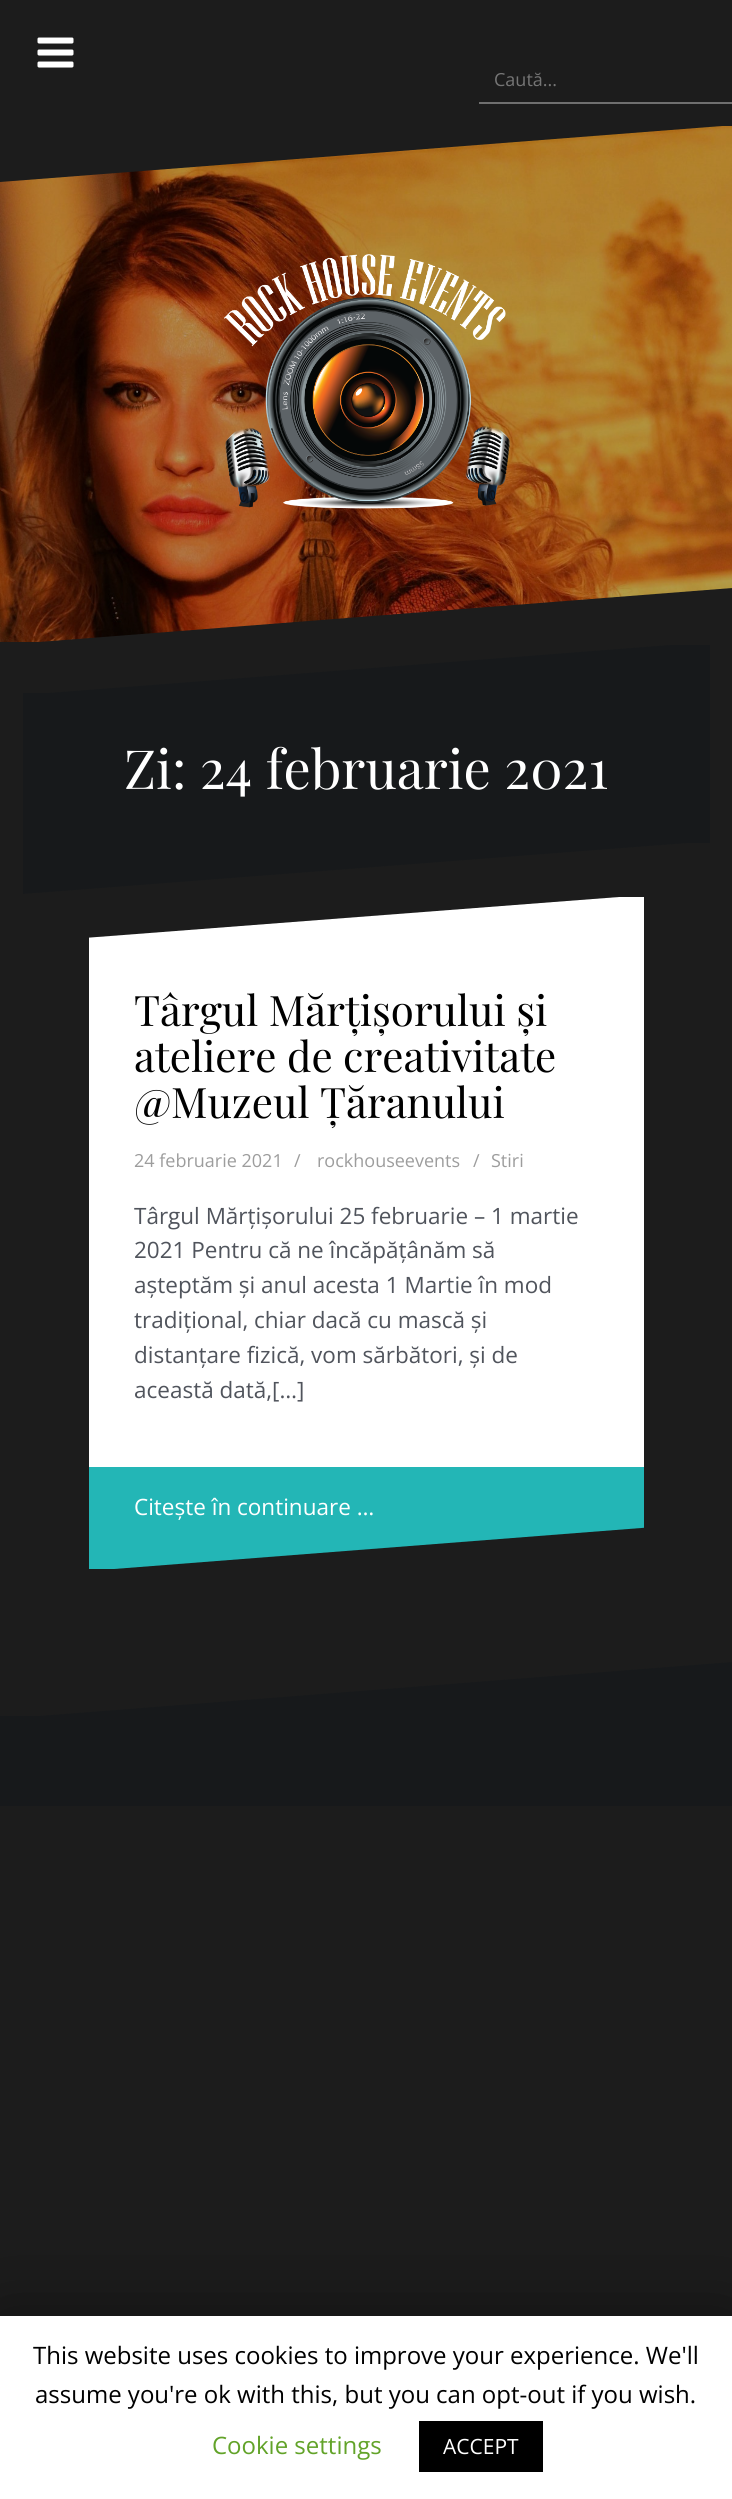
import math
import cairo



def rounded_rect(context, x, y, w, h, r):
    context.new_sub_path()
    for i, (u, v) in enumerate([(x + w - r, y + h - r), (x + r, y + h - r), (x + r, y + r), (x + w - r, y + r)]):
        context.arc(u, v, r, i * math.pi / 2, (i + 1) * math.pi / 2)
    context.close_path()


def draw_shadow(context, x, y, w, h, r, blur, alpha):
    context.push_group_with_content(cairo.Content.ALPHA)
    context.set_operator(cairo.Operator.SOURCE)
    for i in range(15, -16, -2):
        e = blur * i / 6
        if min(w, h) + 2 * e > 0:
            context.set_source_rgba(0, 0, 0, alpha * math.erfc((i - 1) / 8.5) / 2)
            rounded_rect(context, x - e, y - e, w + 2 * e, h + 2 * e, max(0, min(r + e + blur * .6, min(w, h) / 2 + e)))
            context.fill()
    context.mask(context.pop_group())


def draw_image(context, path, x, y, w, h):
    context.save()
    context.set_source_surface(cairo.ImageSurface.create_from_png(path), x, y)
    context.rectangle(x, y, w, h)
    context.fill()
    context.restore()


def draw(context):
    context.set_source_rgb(28 / 255, 28 / 255, 28 / 255)
    context.paint()
    draw_image(context, "images/1.png", 37, 37, 37, 31)
    context.set_source_rgb(111 / 255, 111 / 255, 111 / 255)
    context.rectangle(479, 102, 253, 2)
    context.fill()
    context.set_source_rgb(23 / 255, 25 / 255, 27 / 255)
    context.rectangle(23, 693, 687, 150)
    context.fill()
    context.save()
    context.rectangle(23, 641, 687, 54)
    context.clip()
    context.new_path()
    context.move_to(722, 641)
    context.line_to(722, 695)
    context.line_to(22, 695)
    context.fill()
    context.restore()
    draw_image(context, "images/2.png", 0, 126, 732, 516)
    draw_image(context, "images/3.png", 224, 254, 286, 255)
    context.set_source_rgb(28 / 255, 28 / 255, 28 / 255)
    context.new_path()
    context.move_to(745, 587)
    context.line_to(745, 645)
    context.line_to(0, 645)
    context.fill()
    context.new_path()
    context.move_to(0, 182)
    context.line_to(0, 126)
    context.line_to(722, 126)
    context.fill()
    context.save()
    context.rectangle(23, 842, 687, 52)
    context.clip()
    context.set_source_rgb(23 / 255, 25 / 255, 27 / 255)
    context.new_path()
    context.move_to(22, 894)
    context.line_to(22, 842)
    context.line_to(700, 842)
    context.fill()
    context.restore()
    context.set_source_rgb(1, 1, 1)
    context.rectangle(89, 897, 555, 570)
    context.fill()
    context.set_source_rgb(28 / 255, 28 / 255, 28 / 255)
    context.new_path()
    context.move_to(84, 938)
    context.line_to(84, 896)
    context.line_to(632, 896)
    context.fill()
    context.set_source_rgb(35 / 255, 182 / 255, 182 / 255)
    context.rectangle(89, 1467, 555, 102)
    context.fill()
    context.save()
    context.rectangle(89, 1527, 555, 44)
    context.clip()
    context.set_source_rgb(28 / 255, 28 / 255, 28 / 255)
    context.new_path()
    context.move_to(654, 1527)
    context.line_to(654, 1571)
    context.line_to(88, 1571)
    context.fill()
    context.restore()
    context.set_source_rgb(23 / 255, 25 / 255, 27 / 255)
    context.rectangle(0, 1716, 732, 90)
    context.fill()
    context.new_path()
    context.move_to(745, 1661)
    context.line_to(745, 1719)
    context.line_to(0, 1719)
    context.fill()
    context.set_source_rgb(0, 0, 0)
    draw_shadow(context, 0, 2324, 732, 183, 0, 37.5, 0.5)
    context.set_source_rgb(1, 1, 1)
    context.rectangle(0, 2316, 732, 183)
    context.fill()
    context.set_source_rgb(0, 0, 0)
    context.rectangle(419, 2421, 124, 51)
    context.fill()
    context.select_font_face("Open Sans")
    context.set_font_size(18)
    context.set_source_rgb(117 / 255, 117 / 255, 117 / 255)
    context.move_to(494, 86)
    context.show_text("Caută...")
    context.select_font_face("Playfair Display")
    context.set_font_size(54)
    context.set_source_rgb(1, 1, 1)
    context.move_to(124, 789)
    context.show_text("Zi: 24 februarie 2021")
    context.set_font_size(42)
    context.set_source_rgb(0, 0, 0)
    context.move_to(134, 1026)
    context.show_text("Târgul Mărțișorului și")
    context.move_to(134, 1072)
    context.show_text("ateliere de creativitate")
    context.move_to(134, 1118)
    context.show_text("@Muzeul Țăranului")
    context.select_font_face("Open Sans")
    context.set_font_size(18)
    context.set_source_rgb(157 / 255, 157 / 255, 157 / 255)
    context.move_to(134, 1167)
    context.show_text("24 februarie 2021")
    context.move_to(294, 1167)
    context.show_text("/")
    context.move_to(317, 1167)
    context.show_text("rockhouseevents")
    context.move_to(473, 1167)
    context.show_text("/")
    context.move_to(491, 1167)
    context.show_text("Stiri")
    context.set_font_size(22.5)
    context.set_source_rgb(80 / 255, 84 / 255, 92 / 255)
    context.move_to(134, 1224)
    context.show_text("Târgul Mărțișorului 25 februarie – 1 martie")
    context.move_to(134, 1258)
    context.show_text("2021 Pentru că ne încăpățânăm să")
    context.move_to(134, 1293)
    context.show_text("așteptăm și anul acesta 1 Martie în mod")
    context.move_to(134, 1328)
    context.show_text("tradițional, chiar dacă cu mască și")
    context.move_to(134, 1363)
    context.show_text("distanțare fizică, vom sărbători, și de")
    context.move_to(134, 1398)
    context.show_text("această dată,[…]")
    context.set_source_rgb(1, 1, 1)
    context.move_to(134, 1515)
    context.show_text("Citește în continuare …")
    context.set_font_size(24)
    context.set_source_rgb(0, 0, 0)
    context.move_to(33, 2364)
    context.show_text("This website uses cookies to improve your experience. We'll")
    context.move_to(35, 2403)
    context.show_text("assume you're ok with this, but you can opt-out if you wish.")
    context.set_source_rgb(98 / 255, 163 / 255, 41 / 255)
    context.move_to(212, 2454)
    context.show_text("Cookie settings")
    context.set_font_size(21)
    context.set_source_rgb(1, 1, 1)
    context.move_to(443, 2454)
    context.show_text("ACCEPT")


surface = cairo.ImageSurface(cairo.Format.RGB24, 732, 2499)
context = cairo.Context(surface)
options = cairo.FontOptions()
options.set_hint_metrics(cairo.HintMetrics.OFF)
options.set_hint_style(cairo.HintStyle.NONE)
context.set_font_options(options)
context.set_miter_limit(4)
draw(context)
surface.write_to_png("out.png")
